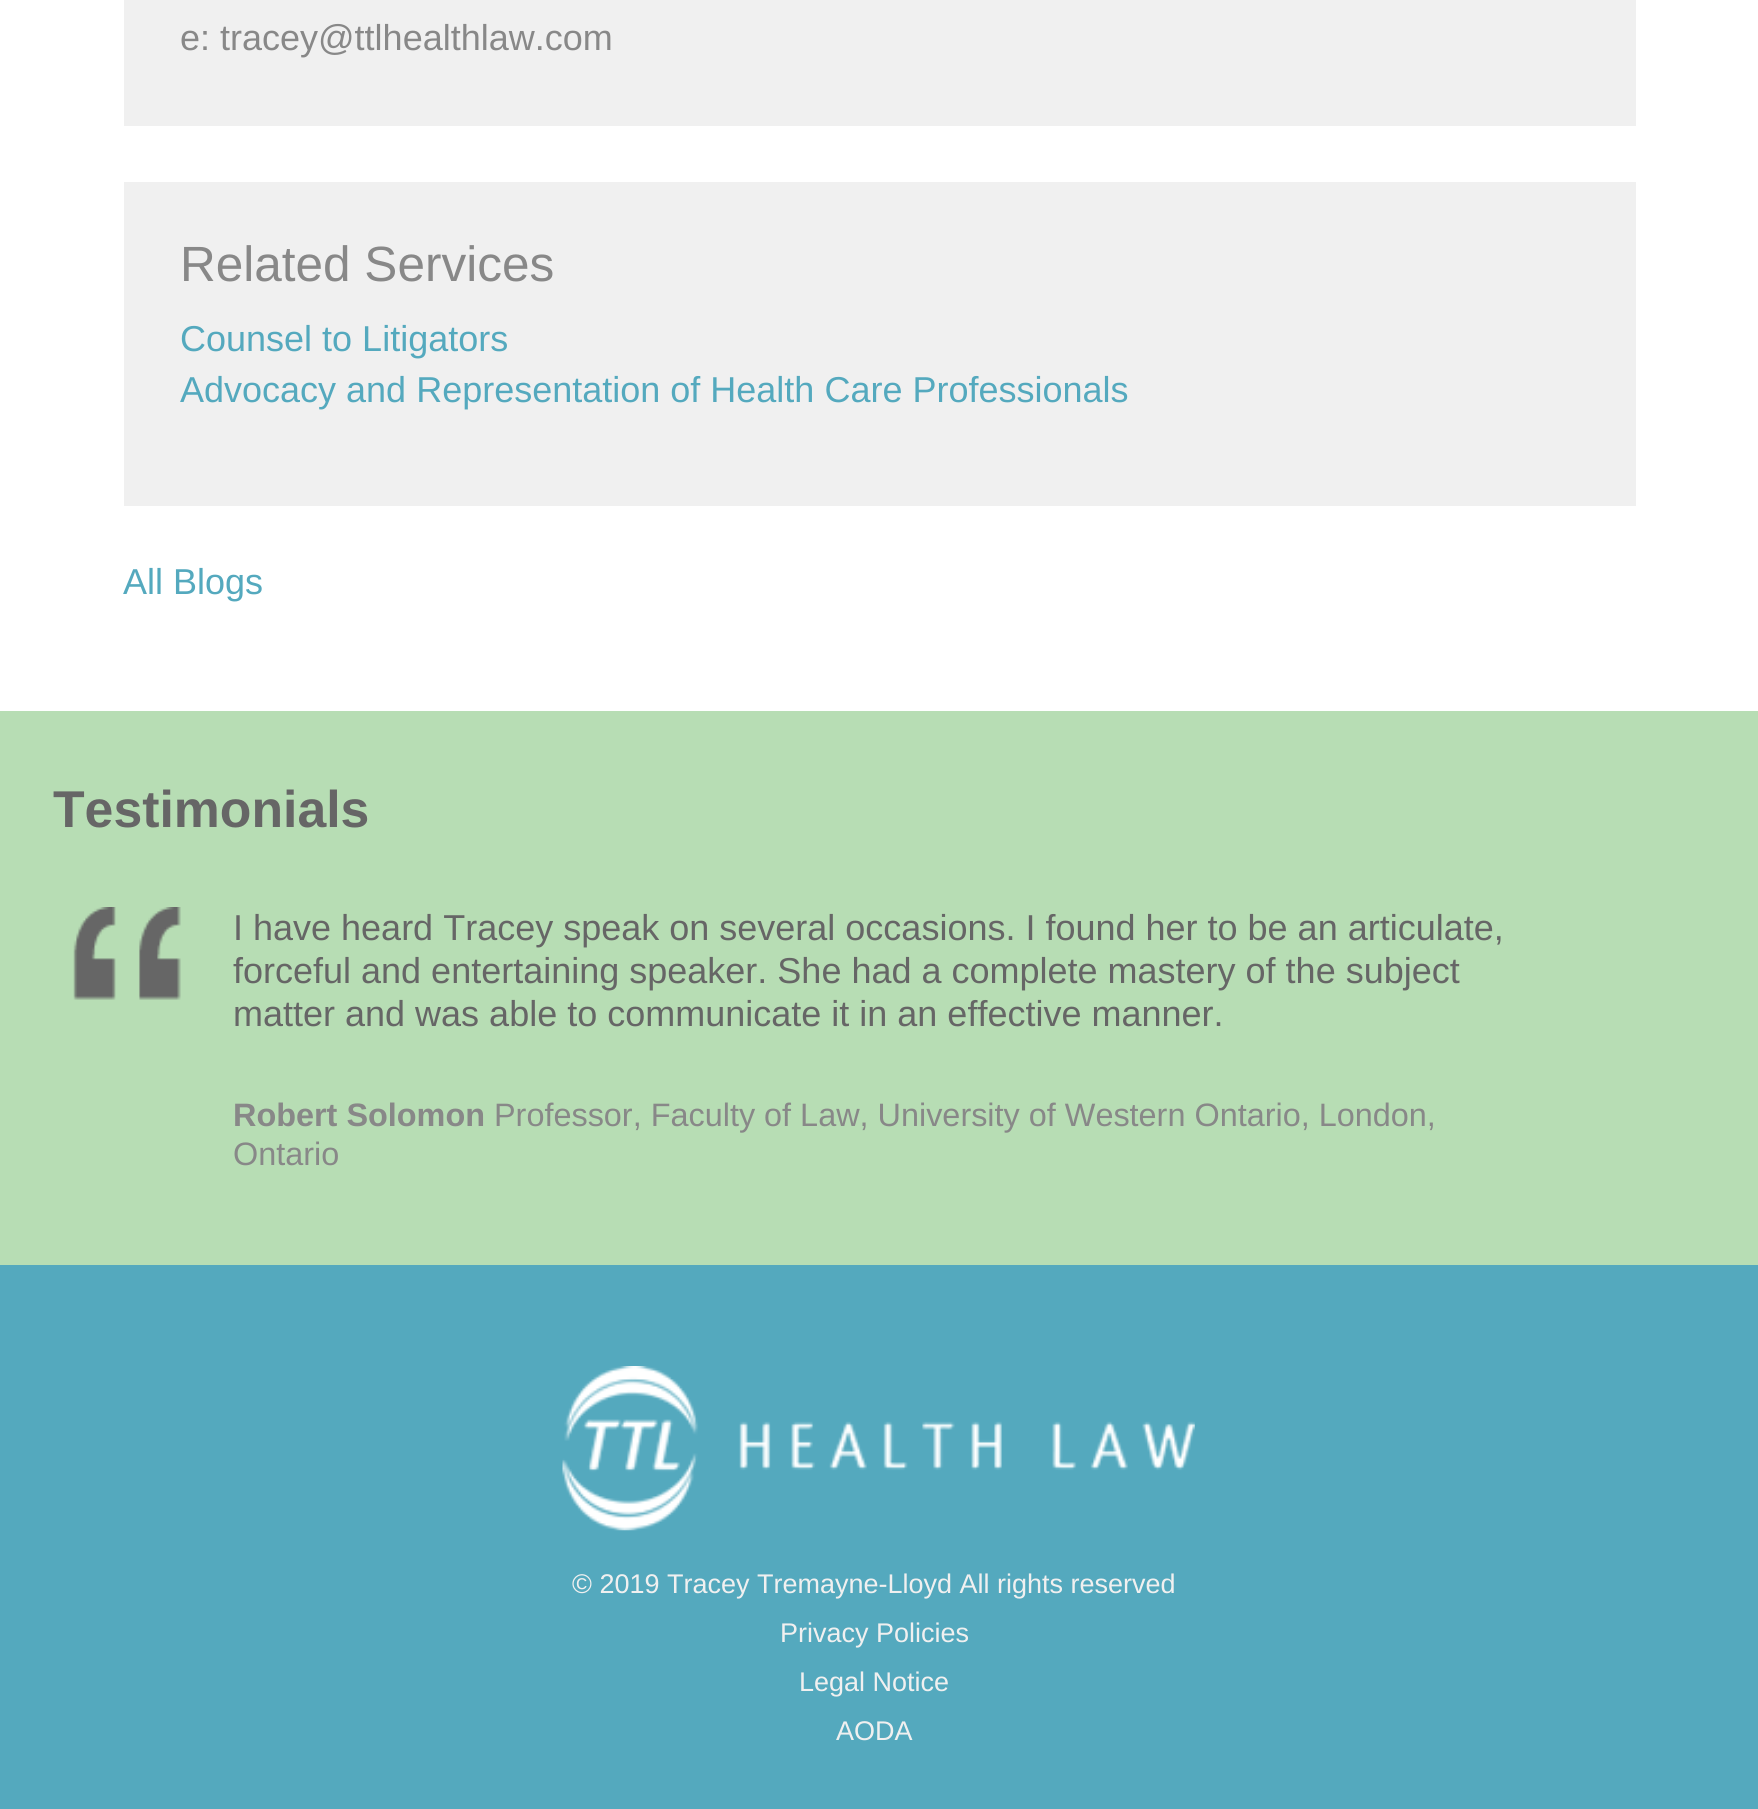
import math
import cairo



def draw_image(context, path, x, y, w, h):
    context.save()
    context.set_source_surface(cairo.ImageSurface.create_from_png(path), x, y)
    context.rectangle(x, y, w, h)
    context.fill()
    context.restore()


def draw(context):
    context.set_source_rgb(1, 1, 1)
    context.paint()
    context.set_source_rgb(240 / 255, 240 / 255, 240 / 255)
    context.rectangle(124, 0, 1512, 126)
    context.fill()
    context.rectangle(124, 182, 1512, 324)
    context.fill()
    context.set_source_rgb(183 / 255, 221 / 255, 180 / 255)
    context.rectangle(0, 711, 1758, 554)
    context.fill()
    draw_image(context, "images/1.png", 73, 907, 108, 93)
    context.set_source_rgb(84 / 255, 169 / 255, 190 / 255)
    context.rectangle(0, 1265, 1758, 544)
    context.fill()
    draw_image(context, "images/2.png", 562, 1366, 633, 165)
    context.select_font_face("Liberation Sans")
    context.set_font_size(36)
    context.set_source_rgb(136 / 255, 136 / 255, 136 / 255)
    context.move_to(180, 50)
    context.show_text("e: tracey@ttlhealthlaw.com")
    context.set_font_size(49.5)
    context.move_to(180, 281)
    context.show_text("Related Services")
    context.set_font_size(36)
    context.set_source_rgb(84 / 255, 169 / 255, 190 / 255)
    context.move_to(180, 351)
    context.show_text("Counsel to Litigators")
    context.move_to(180, 402)
    context.show_text("Advocacy and Representation of Health Care Professionals")
    context.move_to(123, 594)
    context.show_text("All Blogs")
    context.select_font_face("Liberation Sans", cairo.FontSlant.NORMAL, cairo.FontWeight.BOLD)
    context.set_font_size(51.75)
    context.set_source_rgb(102 / 255, 102 / 255, 102 / 255)
    context.move_to(53, 827)
    context.show_text("Testimonials")
    context.select_font_face("Liberation Sans")
    context.set_font_size(36)
    context.move_to(233, 940)
    context.show_text("I have heard Tracey speak on several occasions. I found her to be an articulate,")
    context.move_to(233, 983)
    context.show_text("forceful and entertaining speaker. She had a complete mastery of the subject")
    context.move_to(233, 1026)
    context.show_text("matter and was able to communicate it in an effective manner.")
    context.select_font_face("Liberation Sans", cairo.FontSlant.NORMAL, cairo.FontWeight.BOLD)
    context.set_font_size(32.4)
    context.set_source_rgb(136 / 255, 136 / 255, 136 / 255)
    context.move_to(233, 1126)
    context.show_text("Robert Solomon")
    context.select_font_face("Liberation Sans")
    context.move_to(494, 1126)
    context.show_text("Professor, Faculty of Law, University of Western Ontario, London,")
    context.move_to(233, 1165)
    context.show_text("Ontario")
    context.set_font_size(27)
    context.set_source_rgb(240 / 255, 240 / 255, 240 / 255)
    context.move_to(572, 1593)
    context.show_text("© 2019 Tracey Tremayne-Lloyd All rights reserved")
    context.move_to(780, 1642)
    context.show_text("Privacy Policies")
    context.move_to(799, 1691)
    context.show_text("Legal Notice")
    context.move_to(836, 1740)
    context.show_text("AODA")


surface = cairo.ImageSurface(cairo.Format.RGB24, 1758, 1809)
context = cairo.Context(surface)
options = cairo.FontOptions()
options.set_hint_metrics(cairo.HintMetrics.OFF)
options.set_hint_style(cairo.HintStyle.NONE)
context.set_font_options(options)
context.set_miter_limit(4)
draw(context)
surface.write_to_png("out.png")
